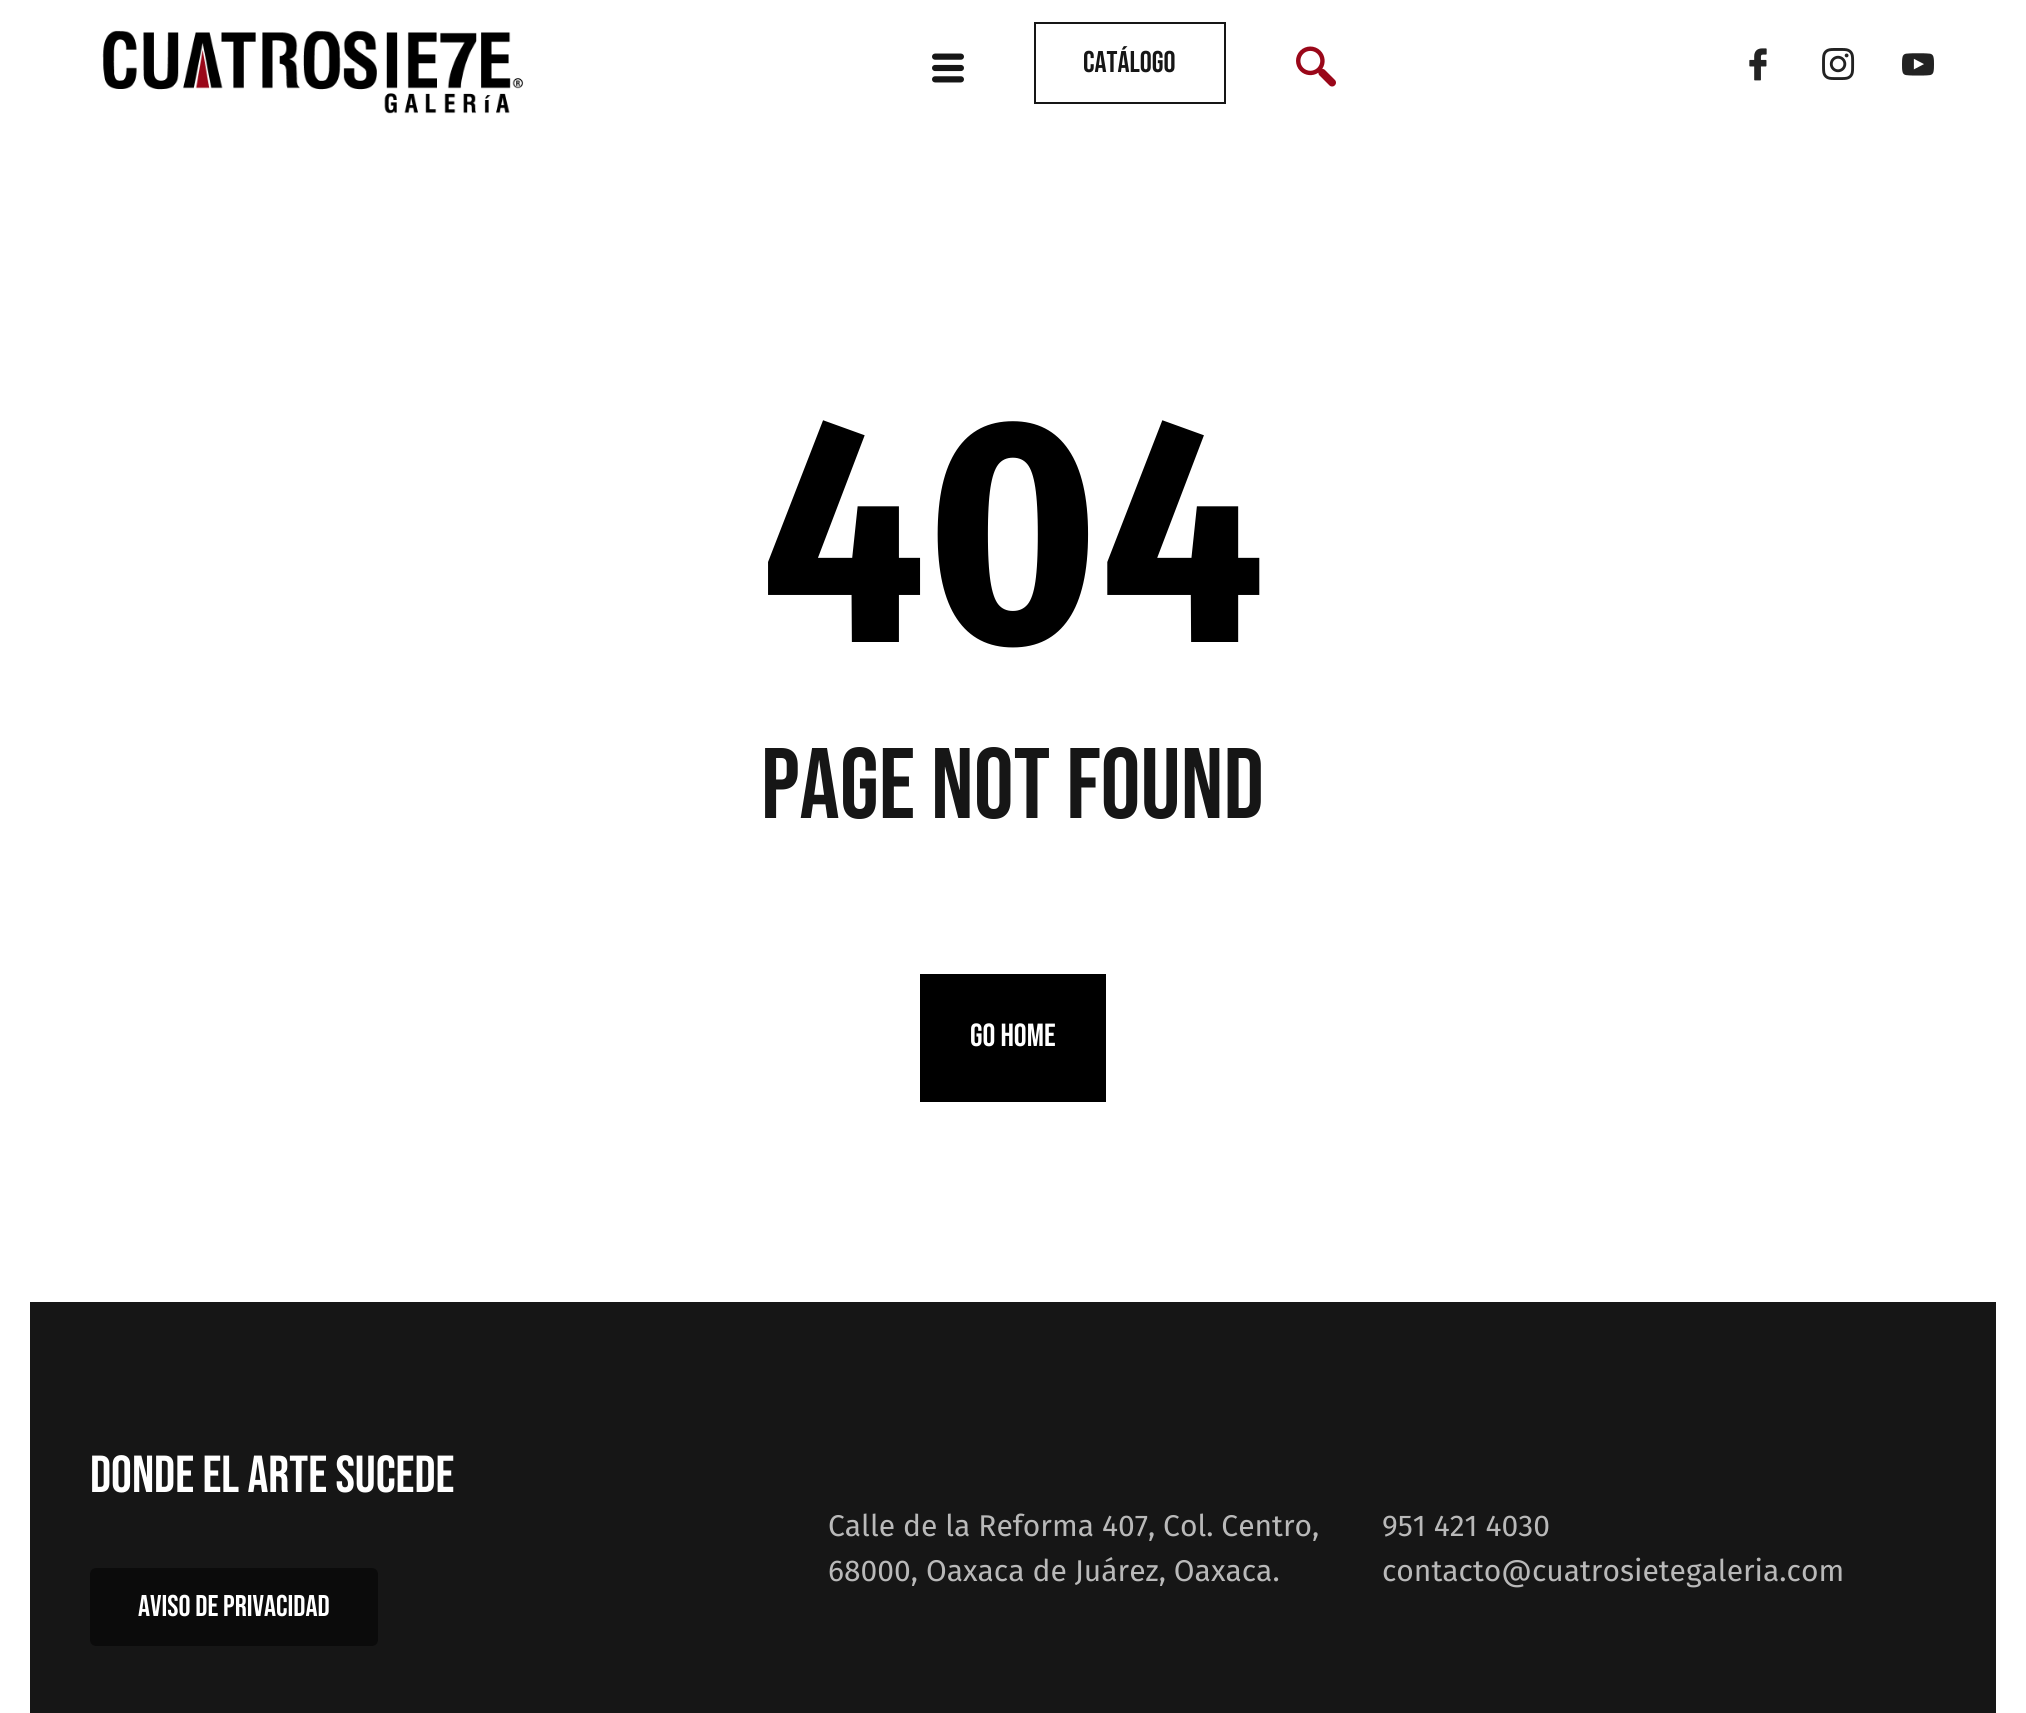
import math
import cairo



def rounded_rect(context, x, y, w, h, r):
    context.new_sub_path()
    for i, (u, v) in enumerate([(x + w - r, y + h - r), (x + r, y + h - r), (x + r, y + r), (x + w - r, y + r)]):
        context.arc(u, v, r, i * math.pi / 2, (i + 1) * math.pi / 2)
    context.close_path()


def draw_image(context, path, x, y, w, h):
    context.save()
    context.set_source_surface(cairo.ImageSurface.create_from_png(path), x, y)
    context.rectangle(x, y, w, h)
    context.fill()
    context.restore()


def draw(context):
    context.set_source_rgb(1, 1, 1)
    context.paint()
    draw_image(context, "images/1.png", 102, 30, 422, 84)
    draw_image(context, "images/2.png", 932, 53, 32, 30)
    context.rectangle(1035, 23, 190, 80)
    context.set_source_rgb(22 / 255, 22 / 255, 22 / 255)
    context.stroke()
    draw_image(context, "images/3.png", 1296, 46, 40, 41)
    draw_image(context, "images/4.png", 1749, 48, 18, 33)
    draw_image(context, "images/5.png", 1822, 48, 33, 32)
    draw_image(context, "images/6.png", 1902, 53, 32, 23)
    context.set_source_rgb(0, 0, 0)
    context.rectangle(920, 974, 186, 128)
    context.fill()
    context.set_source_rgb(22 / 255, 22 / 255, 22 / 255)
    context.rectangle(30, 1302, 1966, 411)
    context.fill()
    context.set_source_rgb(11 / 255, 11 / 255, 11 / 255)
    rounded_rect(context, 90, 1568, 288, 78, 6)
    context.fill()
    context.select_font_face("Bebas Neue")
    context.set_font_size(30)
    context.set_source_rgb(22 / 255, 22 / 255, 22 / 255)
    context.move_to(1083, 72)
    context.show_text("CATÁLOGO")
    context.select_font_face("Fira Sans Condensed", cairo.FontSlant.NORMAL, cairo.FontWeight.BOLD)
    context.set_font_size(320)
    context.set_source_rgb(0, 0, 0)
    context.move_to(761, 642)
    context.show_text("404")
    context.select_font_face("Bebas Neue")
    context.set_font_size(100)
    context.set_source_rgb(22 / 255, 22 / 255, 22 / 255)
    context.move_to(761, 818)
    context.show_text("PAGE NOT FOUND")
    context.set_font_size(32)
    context.set_source_rgb(1, 1, 1)
    context.move_to(970, 1046)
    context.show_text("Go home")
    context.set_font_size(52)
    context.move_to(90, 1492)
    context.show_text("DONDE EL ARTE SUCEDE")
    context.set_font_size(30)
    context.move_to(138, 1616)
    context.show_text("Aviso de privacidad")
    context.select_font_face("Fira Sans")
    context.set_source_rgb(185 / 255, 185 / 255, 185 / 255)
    context.move_to(828, 1536)
    context.show_text("Calle de la Reforma 407, Col. Centro,")
    context.move_to(828, 1581)
    context.show_text("68000, Oaxaca de Juárez, Oaxaca.")
    context.move_to(1382, 1536)
    context.show_text("951 421 4030")
    context.move_to(1382, 1581)
    context.show_text("contacto@cuatrosietegaleria.com")


surface = cairo.ImageSurface(cairo.Format.RGB24, 2026, 1713)
context = cairo.Context(surface)
options = cairo.FontOptions()
options.set_hint_metrics(cairo.HintMetrics.OFF)
options.set_hint_style(cairo.HintStyle.NONE)
context.set_font_options(options)
context.set_miter_limit(4)
draw(context)
surface.write_to_png("out.png")
